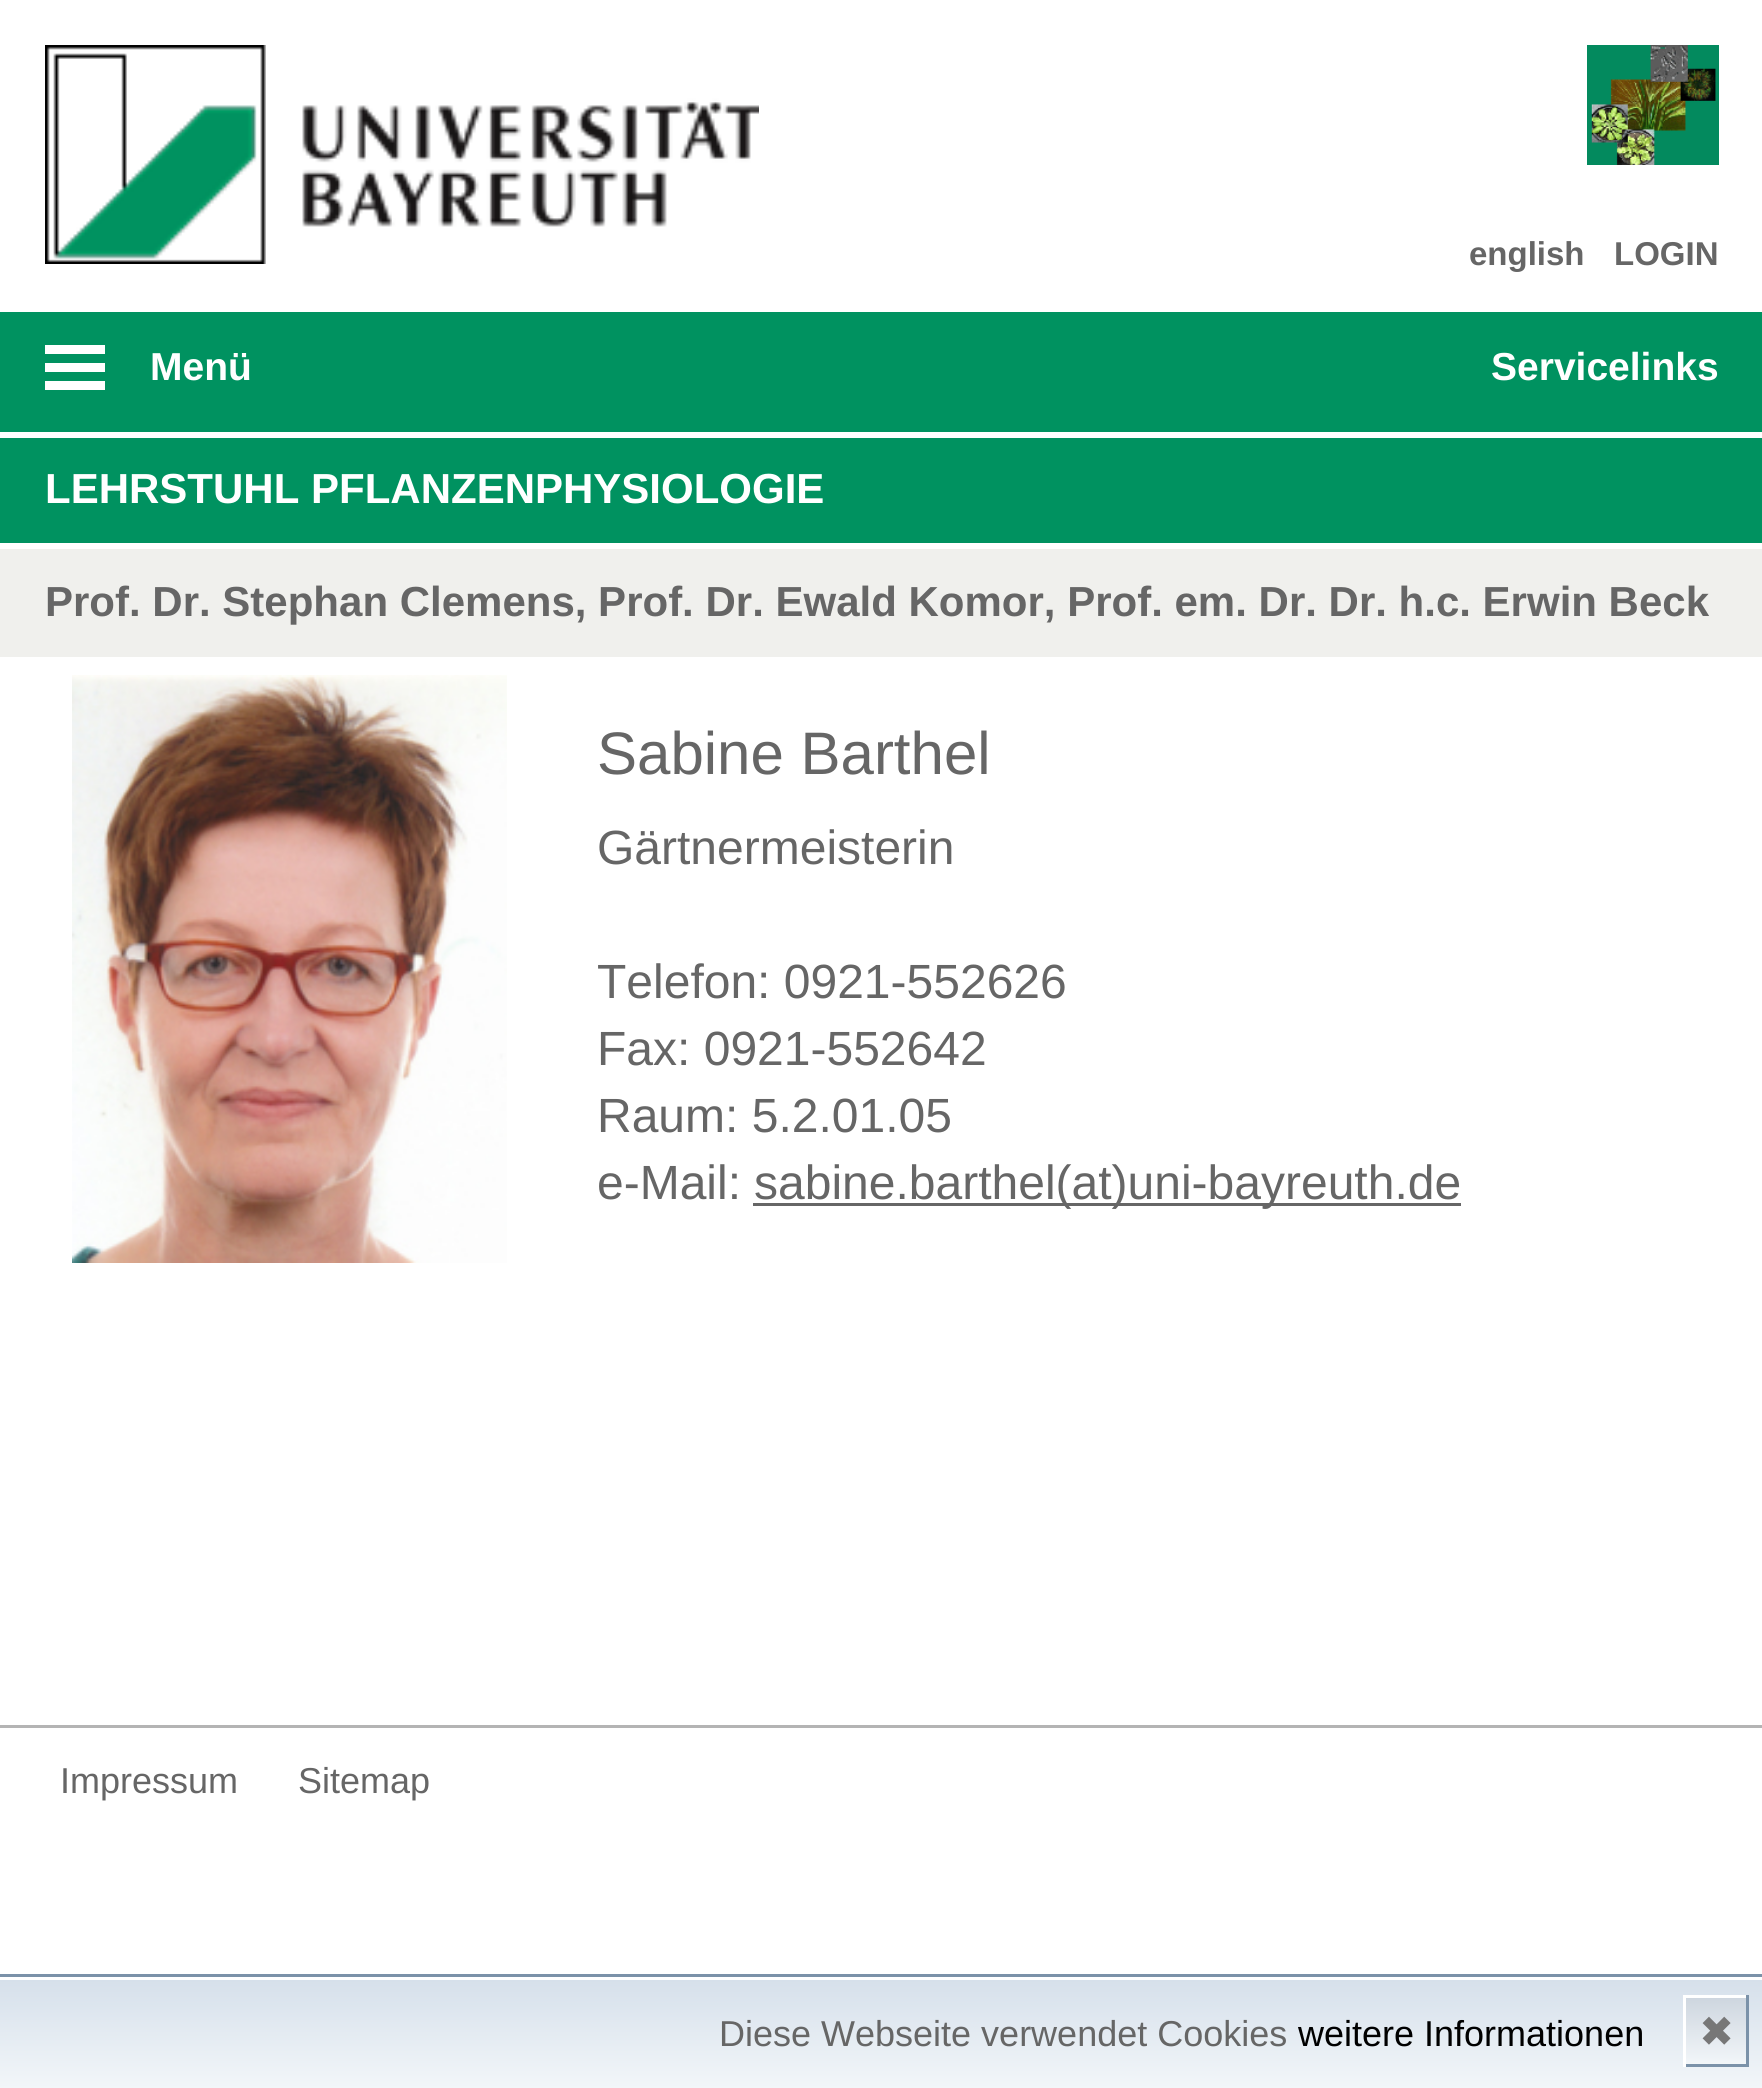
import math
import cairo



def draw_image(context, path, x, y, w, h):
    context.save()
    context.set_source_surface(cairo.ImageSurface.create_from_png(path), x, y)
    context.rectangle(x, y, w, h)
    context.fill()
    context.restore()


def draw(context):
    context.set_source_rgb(1, 1, 1)
    context.paint()
    draw_image(context, "images/1.png", 45, 45, 714, 219)
    draw_image(context, "images/2.png", 1587, 45, 132, 120)
    context.set_source_rgb(0, 146 / 255, 96 / 255)
    context.rectangle(0, 312, 1762, 120)
    context.fill()
    context.set_source_rgb(1, 1, 1)
    context.rectangle(45, 345, 60, 9)
    context.fill()
    context.rectangle(45, 363, 60, 9)
    context.fill()
    context.rectangle(45, 381, 60, 9)
    context.fill()
    context.set_source_rgb(0, 146 / 255, 96 / 255)
    context.rectangle(0, 438, 1762, 105)
    context.fill()
    context.set_source_rgb(240 / 255, 240 / 255, 237 / 255)
    context.rectangle(0, 549, 1762, 108)
    context.fill()
    draw_image(context, "images/3.png", 72, 675, 435, 588)
    context.set_source_rgb(102 / 255, 102 / 255, 102 / 255)
    context.rectangle(753, 1203, 708, 3)
    context.fill()
    context.set_source_rgb(180 / 255, 180 / 255, 180 / 255)
    context.rectangle(0, 1725, 1762, 3)
    context.fill()
    gradient = cairo.LinearGradient(882, 1980, 882, 2088)
    gradient.add_color_stop_rgba(0, 214 / 255, 224 / 255, 235 / 255, 1)
    gradient.add_color_stop_rgba(1, 242 / 255, 246 / 255, 249 / 255, 1)
    context.set_source(gradient)
    context.rectangle(0, 1980, 1762, 108)
    context.fill()
    context.rectangle(-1.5, 1975.5, 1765, 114)
    context.set_source_rgb(123 / 255, 146 / 255, 169 / 255)
    context.set_line_width(3)
    context.stroke()
    gradient = cairo.LinearGradient(1716, 1998, 1716, 2064)
    gradient.add_color_stop_rgba(0, 206 / 255, 214 / 255, 223 / 255, 1)
    gradient.add_color_stop_rgba(1, 242 / 255, 246 / 255, 249 / 255, 1)
    context.set_source(gradient)
    context.rectangle(1686, 1998, 60, 66)
    context.fill()
    context.set_source_rgb(1, 1, 1)
    context.rectangle(1683, 1995, 66, 3)
    context.fill()
    context.set_source_rgb(123 / 255, 146 / 255, 169 / 255)
    context.rectangle(1746, 1995, 3, 72)
    context.fill()
    context.rectangle(1683, 2064, 66, 3)
    context.fill()
    context.set_source_rgb(1, 1, 1)
    context.rectangle(1683, 1995, 3, 72)
    context.fill()
    context.select_font_face("Liberation Sans", cairo.FontSlant.NORMAL, cairo.FontWeight.BOLD)
    context.set_font_size(33)
    context.set_source_rgb(102 / 255, 102 / 255, 102 / 255)
    context.move_to(1469, 265)
    context.show_text("english")
    context.move_to(1614, 265)
    context.show_text("LOGIN")
    context.set_font_size(39)
    context.set_source_rgb(1, 1, 1)
    context.move_to(150, 380)
    context.show_text("Menü")
    context.move_to(1491, 380)
    context.show_text("Servicelinks")
    context.set_font_size(42)
    context.move_to(45, 503)
    context.show_text("LEHRSTUHL PFLANZENPHYSIOLOGIE")
    context.set_source_rgb(102 / 255, 102 / 255, 102 / 255)
    context.move_to(45, 616)
    context.show_text("Prof. Dr. Stephan Clemens, Prof. Dr. Ewald Komor, Prof. em. Dr. Dr. h.c. Erwin Beck")
    context.select_font_face("Liberation Sans")
    context.set_font_size(60)
    context.move_to(597, 774)
    context.show_text("Sabine Barthel")
    context.set_font_size(48)
    context.move_to(597, 864)
    context.show_text("Gärtnermeisterin")
    context.move_to(597, 998)
    context.show_text("Telefon: 0921-552626")
    context.move_to(597, 1065)
    context.show_text("Fax: 0921-552642")
    context.move_to(597, 1132)
    context.show_text("Raum: 5.2.01.05")
    context.move_to(597, 1199)
    context.show_text("e-Mail:")
    context.move_to(754, 1199)
    context.show_text("sabine.barthel(at)uni-bayreuth.de")
    context.set_font_size(36)
    context.move_to(60, 1793)
    context.show_text("Impressum")
    context.move_to(298, 1793)
    context.show_text("Sitemap")
    context.move_to(719, 2046)
    context.show_text("Diese Webseite verwendet Cookies")
    context.set_source_rgb(0, 0, 0)
    context.move_to(1298, 2046)
    context.show_text("weitere Informationen")
    context.select_font_face("DejaVu Sans")
    context.set_font_size(42)
    context.set_source_rgb(119 / 255, 119 / 255, 119 / 255)
    context.move_to(1699, 2046)
    context.show_text("✖")


surface = cairo.ImageSurface(cairo.Format.RGB24, 1762, 2088)
context = cairo.Context(surface)
options = cairo.FontOptions()
options.set_hint_metrics(cairo.HintMetrics.OFF)
options.set_hint_style(cairo.HintStyle.NONE)
context.set_font_options(options)
context.set_miter_limit(4)
draw(context)
surface.write_to_png("out.png")
